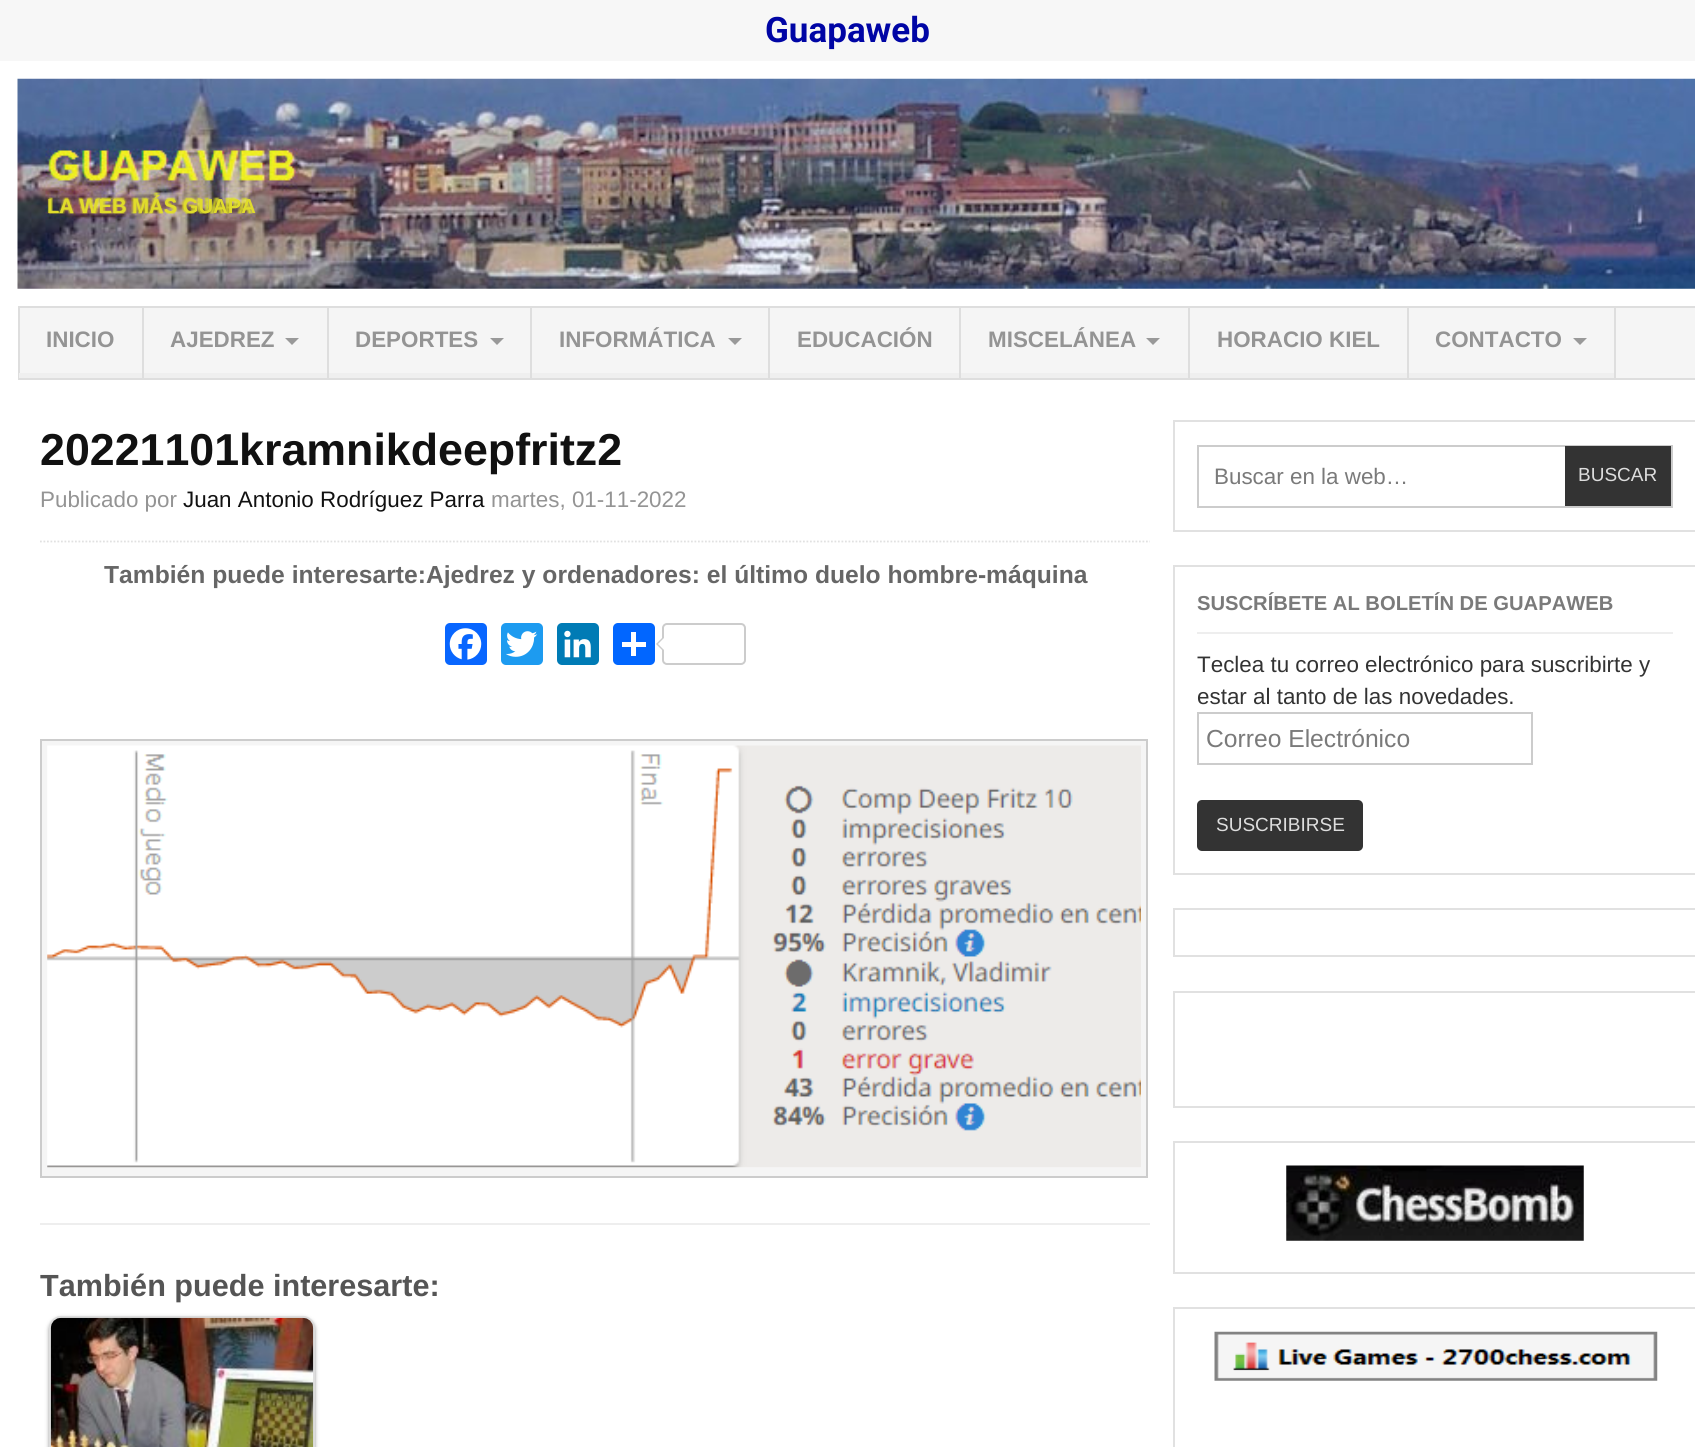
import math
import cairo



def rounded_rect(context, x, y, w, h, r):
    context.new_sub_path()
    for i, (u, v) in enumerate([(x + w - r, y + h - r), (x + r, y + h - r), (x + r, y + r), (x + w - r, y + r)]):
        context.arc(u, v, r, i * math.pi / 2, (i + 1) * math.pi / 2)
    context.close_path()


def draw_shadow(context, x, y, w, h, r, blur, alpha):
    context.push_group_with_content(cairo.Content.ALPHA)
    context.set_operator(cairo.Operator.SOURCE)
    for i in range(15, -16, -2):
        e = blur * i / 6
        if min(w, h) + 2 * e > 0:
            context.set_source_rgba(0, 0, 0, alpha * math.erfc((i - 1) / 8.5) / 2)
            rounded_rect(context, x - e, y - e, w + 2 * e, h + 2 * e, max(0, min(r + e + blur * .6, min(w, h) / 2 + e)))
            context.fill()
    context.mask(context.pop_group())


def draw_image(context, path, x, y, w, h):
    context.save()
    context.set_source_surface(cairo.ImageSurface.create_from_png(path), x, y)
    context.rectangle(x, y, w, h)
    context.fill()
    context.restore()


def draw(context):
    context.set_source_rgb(1, 1, 1)
    context.paint()
    context.set_source_rgb(247 / 255, 247 / 255, 247 / 255)
    context.rectangle(0, 0, 1695, 61)
    context.fill()
    draw_image(context, "images/1.png", 17, 78, 1678, 211)
    context.set_source_rgb(245 / 255, 245 / 255, 245 / 255)
    context.rectangle(19, 307, 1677, 72)
    context.fill_preserve()
    context.set_source_rgb(222 / 255, 222 / 255, 222 / 255)
    context.stroke()
    context.rectangle(142, 308, 2, 70)
    context.fill()
    context.set_source_rgb(239 / 255, 239 / 255, 239 / 255)
    context.rectangle(19, 373, 123, 5)
    context.fill()
    context.set_source_rgb(222 / 255, 222 / 255, 222 / 255)
    context.rectangle(327, 308, 2, 70)
    context.fill()
    context.set_source_rgb(239 / 255, 239 / 255, 239 / 255)
    context.rectangle(144, 373, 183, 5)
    context.fill()
    context.set_source_rgb(153 / 255, 153 / 255, 153 / 255)
    context.new_path()
    context.move_to(285, 338)
    context.line_to(299, 338)
    context.line_to(292, 345)
    context.close_path()
    context.fill()
    context.set_source_rgb(222 / 255, 222 / 255, 222 / 255)
    context.rectangle(530, 308, 2, 70)
    context.fill()
    context.set_source_rgb(239 / 255, 239 / 255, 239 / 255)
    context.rectangle(329, 373, 201, 5)
    context.fill()
    context.set_source_rgb(153 / 255, 153 / 255, 153 / 255)
    context.new_path()
    context.move_to(490, 338)
    context.line_to(504, 338)
    context.line_to(497, 345)
    context.close_path()
    context.fill()
    context.set_source_rgb(222 / 255, 222 / 255, 222 / 255)
    context.rectangle(768, 308, 2, 70)
    context.fill()
    context.set_source_rgb(239 / 255, 239 / 255, 239 / 255)
    context.rectangle(532, 373, 236, 5)
    context.fill()
    context.set_source_rgb(153 / 255, 153 / 255, 153 / 255)
    context.new_path()
    context.move_to(728, 338)
    context.line_to(742, 338)
    context.line_to(735, 345)
    context.close_path()
    context.fill()
    context.set_source_rgb(222 / 255, 222 / 255, 222 / 255)
    context.rectangle(959, 308, 2, 70)
    context.fill()
    context.set_source_rgb(239 / 255, 239 / 255, 239 / 255)
    context.rectangle(770, 373, 189, 5)
    context.fill()
    context.set_source_rgb(222 / 255, 222 / 255, 222 / 255)
    context.rectangle(1188, 308, 2, 70)
    context.fill()
    context.set_source_rgb(239 / 255, 239 / 255, 239 / 255)
    context.rectangle(961, 373, 227, 5)
    context.fill()
    context.set_source_rgb(153 / 255, 153 / 255, 153 / 255)
    context.new_path()
    context.move_to(1146, 338)
    context.line_to(1160, 338)
    context.line_to(1153, 345)
    context.close_path()
    context.fill()
    context.set_source_rgb(222 / 255, 222 / 255, 222 / 255)
    context.rectangle(1407, 308, 2, 70)
    context.fill()
    context.set_source_rgb(239 / 255, 239 / 255, 239 / 255)
    context.rectangle(1190, 373, 217, 5)
    context.fill()
    context.set_source_rgb(222 / 255, 222 / 255, 222 / 255)
    context.rectangle(1614, 308, 2, 70)
    context.fill()
    context.set_source_rgb(239 / 255, 239 / 255, 239 / 255)
    context.rectangle(1409, 373, 205, 5)
    context.fill()
    context.set_source_rgb(153 / 255, 153 / 255, 153 / 255)
    context.new_path()
    context.move_to(1573, 338)
    context.line_to(1587, 338)
    context.line_to(1580, 345)
    context.close_path()
    context.fill()
    context.set_source_rgb(238 / 255, 238 / 255, 238 / 255)
    context.rectangle(40, 1223, 1110, 2)
    context.fill()
    context.new_path()
    context.move_to(40, 541.5)
    context.line_to(1150, 541.5)
    context.set_source_rgb(225 / 255, 225 / 255, 225 / 255)
    context.set_line_width(1.8)
    context.set_dash([1.75, 1.75])
    context.stroke()
    context.set_source_rgb(8 / 255, 102 / 255, 1)
    rounded_rect(context, 445, 623, 42, 42, 5)
    context.fill()
    draw_image(context, "images/2.png", 449, 628, 33, 32)
    context.set_source_rgb(29 / 255, 155 / 255, 240 / 255)
    rounded_rect(context, 501, 623, 42, 42, 5)
    context.fill()
    draw_image(context, "images/3.png", 506, 631, 32, 26)
    context.set_source_rgb(0, 123 / 255, 181 / 255)
    rounded_rect(context, 557, 623, 42, 42, 5)
    context.fill()
    draw_image(context, "images/4.png", 564, 630, 27, 28)
    context.set_source_rgb(1 / 255, 102 / 255, 1)
    rounded_rect(context, 613, 623, 42, 42, 5)
    context.fill()
    context.set_source_rgb(1, 1, 1)
    context.rectangle(631, 632, 5, 24)
    context.fill()
    context.rectangle(622, 642, 24, 5)
    context.fill()
    rounded_rect(context, 663, 624, 82, 40, 4)
    context.set_source_rgb(204 / 255, 204 / 255, 204 / 255)
    context.set_line_width(2)
    context.set_dash([])
    context.stroke()
    context.new_path()
    context.move_to(663, 637)
    context.line_to(663, 651)
    context.line_to(656, 644)
    context.close_path()
    context.fill()
    context.set_source_rgb(1, 1, 1)
    context.new_path()
    context.move_to(665, 637)
    context.line_to(665, 651)
    context.line_to(658, 644)
    context.close_path()
    context.fill()
    context.set_source_rgb(245 / 255, 245 / 255, 245 / 255)
    context.rectangle(41, 740, 1106, 437)
    context.fill_preserve()
    context.set_source_rgb(204 / 255, 204 / 255, 204 / 255)
    context.stroke()
    draw_image(context, "images/5.png", 47, 745, 1094, 423)
    context.set_source_rgb(0, 0, 0)
    draw_shadow(context, 49, 1318, 266, 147, 12, 2, 0.4)
    rounded_rect(context, 50, 1317, 264, 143, 11)
    context.set_source_rgb(221 / 255, 221 / 255, 221 / 255)
    context.stroke()
    draw_image(context, "images/6.png", 50, 1317, 264, 130)
    context.rectangle(1174, 421, 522, 110)
    context.set_source_rgb(225 / 255, 225 / 255, 225 / 255)
    context.stroke()
    context.rectangle(1198, 446, 474, 61)
    context.set_source_rgb(204 / 255, 204 / 255, 204 / 255)
    context.stroke()
    context.set_source_rgb(51 / 255, 51 / 255, 51 / 255)
    context.rectangle(1565, 446, 106, 60)
    context.fill()
    context.rectangle(1174, 566, 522, 308)
    context.set_source_rgb(225 / 255, 225 / 255, 225 / 255)
    context.stroke()
    context.set_source_rgb(238 / 255, 238 / 255, 238 / 255)
    context.rectangle(1197, 632, 476, 2)
    context.fill()
    context.rectangle(1198, 713, 334, 51)
    context.set_source_rgb(204 / 255, 204 / 255, 204 / 255)
    context.stroke()
    context.set_source_rgb(51 / 255, 51 / 255, 51 / 255)
    rounded_rect(context, 1197, 800, 166, 51, 5)
    context.fill()
    context.rectangle(1174, 909, 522, 47)
    context.set_source_rgb(225 / 255, 225 / 255, 225 / 255)
    context.stroke()
    context.rectangle(1174, 992, 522, 115)
    context.stroke()
    context.rectangle(1174, 1142, 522, 131)
    context.stroke()
    draw_image(context, "images/7.png", 1286, 1165, 298, 76)
    context.rectangle(1174, 1308, 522, 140)
    context.stroke()
    draw_image(context, "images/8.png", 1214, 1331, 444, 50)
    context.select_font_face("Roboto", cairo.FontSlant.NORMAL, cairo.FontWeight.BOLD)
    context.set_font_size(35)
    context.set_source_rgb(0, 5 / 255, 165 / 255)
    context.move_to(765, 42)
    context.show_text("Guapaweb")
    context.select_font_face("Liberation Sans", cairo.FontSlant.NORMAL, cairo.FontWeight.BOLD)
    context.set_font_size(20.2)
    context.set_source_rgb(224 / 255, 220 / 255, 43 / 255)
    context.move_to(47, 213)
    context.show_text("LA WEB MÁS GUAPA")
    context.set_font_size(22.4)
    context.set_source_rgb(148 / 255, 148 / 255, 148 / 255)
    context.move_to(46, 347)
    context.show_text("INICIO")
    context.move_to(170, 347)
    context.show_text("AJEDREZ")
    context.move_to(355, 347)
    context.show_text("DEPORTES")
    context.move_to(559, 347)
    context.show_text("INFORMÁTICA")
    context.move_to(797, 347)
    context.show_text("EDUCACIÓN")
    context.move_to(988, 347)
    context.show_text("MISCELÁNEA")
    context.move_to(1217, 347)
    context.show_text("HORACIO KIEL")
    context.move_to(1435, 347)
    context.show_text("CONTACTO")
    context.set_font_size(44.75)
    context.set_source_rgb(17 / 255, 17 / 255, 17 / 255)
    context.move_to(40, 465)
    context.show_text("20221101kramnikdeepfritz2")
    context.select_font_face("Liberation Sans")
    context.set_font_size(22.4)
    context.set_source_rgb(148 / 255, 148 / 255, 148 / 255)
    context.move_to(40, 507)
    context.show_text("Publicado por")
    context.set_source_rgb(17 / 255, 17 / 255, 17 / 255)
    context.move_to(183, 507)
    context.show_text("Juan Antonio Rodríguez Parra")
    context.set_source_rgb(148 / 255, 148 / 255, 148 / 255)
    context.move_to(491, 507)
    context.show_text("martes, 01-11-2022")
    context.select_font_face("Liberation Sans", cairo.FontSlant.NORMAL, cairo.FontWeight.BOLD)
    context.set_font_size(24.65)
    context.set_source_rgb(102 / 255, 102 / 255, 102 / 255)
    context.move_to(104, 583)
    context.show_text("También puede interesarte:Ajedrez y ordenadores: el último duelo hombre-máquina")
    context.set_font_size(30.6)
    context.set_source_rgb(85 / 255, 85 / 255, 85 / 255)
    context.move_to(40, 1296)
    context.show_text("También puede interesarte:")
    context.select_font_face("Liberation Sans")
    context.set_font_size(22.4)
    context.set_source_rgb(122 / 255, 122 / 255, 122 / 255)
    context.move_to(1214, 484)
    context.show_text("Buscar en la web…")
    context.set_font_size(19)
    context.set_source_rgb(221 / 255, 221 / 255, 221 / 255)
    context.move_to(1578, 481)
    context.show_text("BUSCAR")
    context.select_font_face("Liberation Sans", cairo.FontSlant.NORMAL, cairo.FontWeight.BOLD)
    context.set_font_size(20.2)
    context.set_source_rgb(122 / 255, 122 / 255, 122 / 255)
    context.move_to(1197, 610)
    context.show_text("SUSCRÍBETE AL BOLETÍN DE GUAPAWEB")
    context.select_font_face("Liberation Sans")
    context.set_font_size(22.4)
    context.set_source_rgb(51 / 255, 51 / 255, 51 / 255)
    context.move_to(1197, 672)
    context.show_text("Teclea tu correo electrónico para suscribirte y")
    context.move_to(1197, 704)
    context.show_text("estar al tanto de las novedades.")
    context.set_font_size(24.65)
    context.set_source_rgb(122 / 255, 122 / 255, 122 / 255)
    context.move_to(1206, 747)
    context.show_text("Correo Electrónico")
    context.set_font_size(19)
    context.set_source_rgb(221 / 255, 221 / 255, 221 / 255)
    context.move_to(1216, 831)
    context.show_text("SUSCRIBIRSE")


surface = cairo.ImageSurface(cairo.Format.RGB24, 1695, 1447)
context = cairo.Context(surface)
options = cairo.FontOptions()
options.set_hint_metrics(cairo.HintMetrics.OFF)
options.set_hint_style(cairo.HintStyle.NONE)
context.set_font_options(options)
context.set_miter_limit(4)
draw(context)
surface.write_to_png("out.png")
